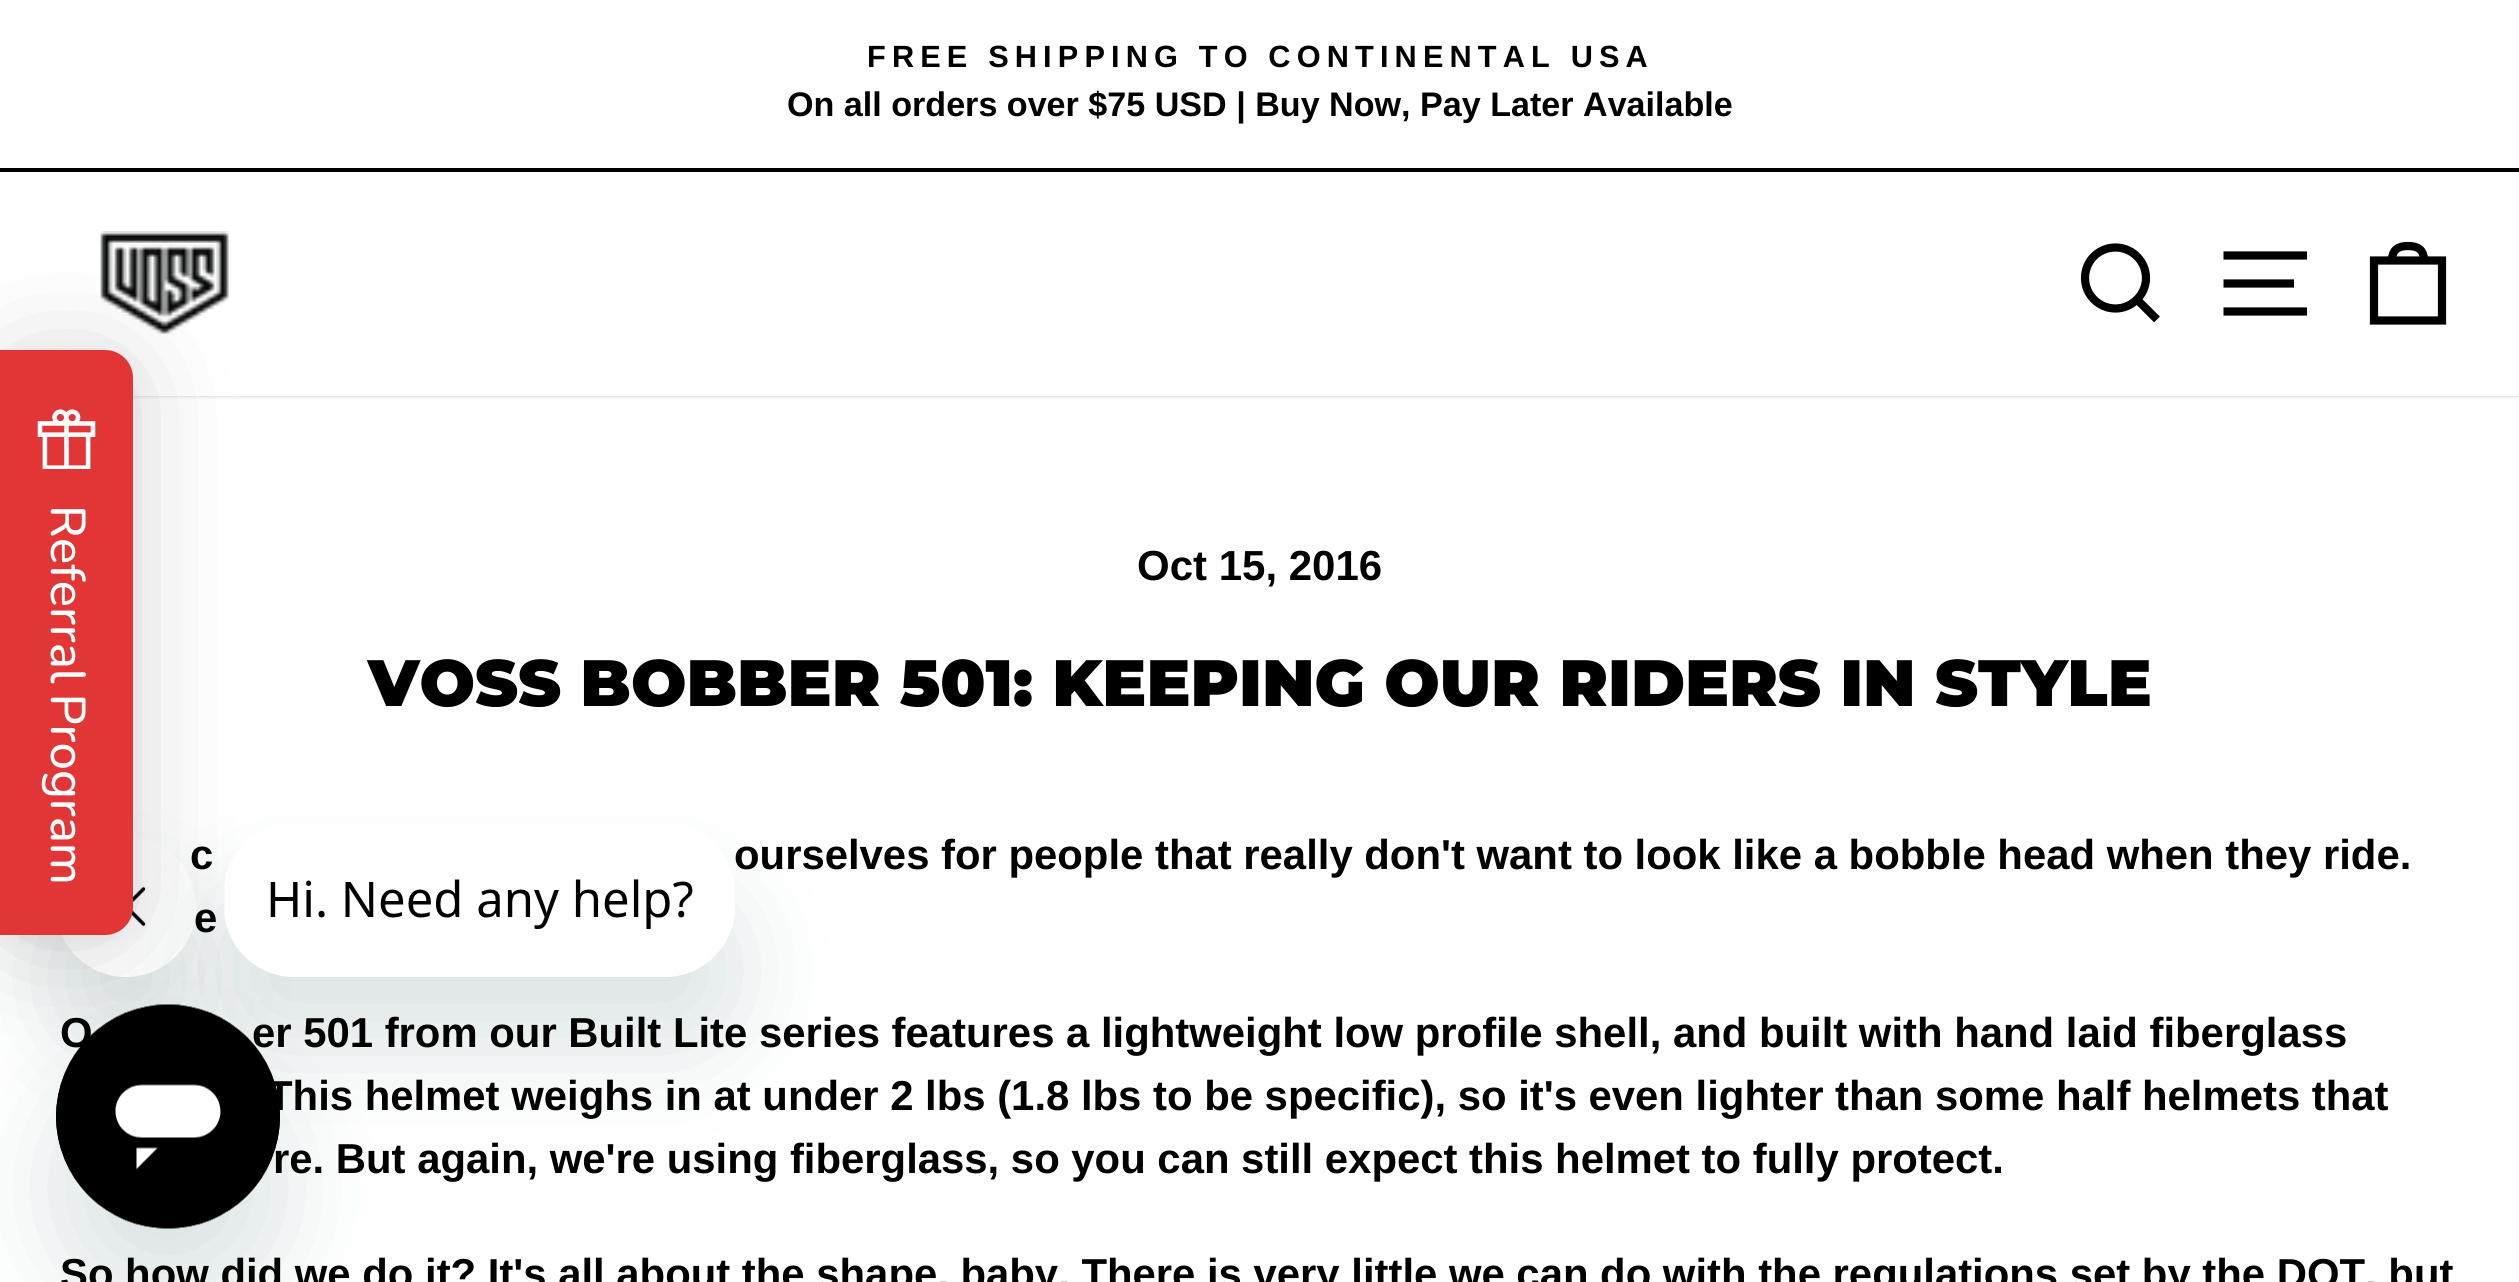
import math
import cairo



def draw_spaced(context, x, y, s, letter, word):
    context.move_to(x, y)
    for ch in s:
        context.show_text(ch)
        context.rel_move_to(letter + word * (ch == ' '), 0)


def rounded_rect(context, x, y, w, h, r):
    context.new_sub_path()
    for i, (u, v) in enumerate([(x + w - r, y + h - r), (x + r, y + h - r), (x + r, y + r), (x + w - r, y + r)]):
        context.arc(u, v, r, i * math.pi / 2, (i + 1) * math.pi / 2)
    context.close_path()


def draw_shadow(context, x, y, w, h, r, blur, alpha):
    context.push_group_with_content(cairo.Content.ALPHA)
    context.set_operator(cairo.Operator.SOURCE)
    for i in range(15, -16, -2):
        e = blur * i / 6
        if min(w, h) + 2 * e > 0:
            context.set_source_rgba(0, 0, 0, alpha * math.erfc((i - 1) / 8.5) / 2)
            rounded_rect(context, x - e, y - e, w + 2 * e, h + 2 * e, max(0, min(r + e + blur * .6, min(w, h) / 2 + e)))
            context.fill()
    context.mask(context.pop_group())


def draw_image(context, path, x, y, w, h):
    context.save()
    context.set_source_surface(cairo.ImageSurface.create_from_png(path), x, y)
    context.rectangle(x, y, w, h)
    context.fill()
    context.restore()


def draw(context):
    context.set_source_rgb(1, 1, 1)
    context.paint()
    context.set_source_rgb(0, 0, 0)
    context.rectangle(0, 168, 2519, 4)
    context.fill()
    context.set_source_rgb(0, 0, 0)
    draw_shadow(context, 0, 172, 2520, 224, 0, 2, 0.2)
    context.set_source_rgb(1, 1, 1)
    context.rectangle(0, 172, 2519, 224)
    context.fill()
    draw_image(context, "images/1.png", 100, 231, 129, 103)
    context.new_path()
    context.move_to(2146, 278)
    context.curve_to(2146, 294.5, 2132, 308.5, 2115.5, 308.5)
    context.curve_to(2098.5, 308.5, 2085, 294.5, 2085, 278)
    context.curve_to(2085, 261, 2098.5, 247.5, 2115.5, 247.5)
    context.curve_to(2132, 247.5, 2146, 261, 2146, 278)
    context.close_path()
    context.move_to(2157, 319.5)
    context.line_to(2137.5, 300)
    context.set_source_rgb(0, 0, 0)
    context.set_line_width(8.2)
    context.stroke()
    context.new_path()
    context.move_to(2223.5, 255.5)
    context.line_to(2307, 255.5)
    context.move_to(2223.5, 283.5)
    context.line_to(2294, 283.5)
    context.move_to(2223.5, 311.5)
    context.line_to(2307, 311.5)
    context.stroke()
    context.new_path()
    context.move_to(2374, 260.5)
    context.line_to(2442, 260.5)
    context.line_to(2442, 320.5)
    context.line_to(2374, 320.5)
    context.close_path()
    context.stroke()
    context.new_path()
    context.move_to(2392, 260.5)
    context.curve_to(2392, 249, 2399, 246, 2408, 246)
    context.curve_to(2417, 246, 2424, 249, 2424, 260.5)
    context.stroke()
    context.save()
    context.set_fill_rule(cairo.FillRule.EVEN_ODD)
    context.new_path()
    context.move_to(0, 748)
    context.line_to(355, 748)
    context.line_to(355, 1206)
    context.line_to(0, 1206)
    context.close_path()
    context.move_to(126, 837)
    context.curve_to(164.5, 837, 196, 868.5, 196, 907)
    context.curve_to(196, 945.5, 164.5, 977, 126, 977)
    context.curve_to(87.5, 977, 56, 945.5, 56, 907)
    context.curve_to(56, 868.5, 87.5, 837, 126, 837)
    context.close_path()
    context.clip()
    context.set_source_rgb(23 / 255, 73 / 255, 77 / 255)
    draw_shadow(context, 56, 907, 140, 140, 70, 52.5, 0.15)
    context.restore()
    draw_image(context, "images/4.png", 62, 840, 130, 137)
    context.set_source_rgb(0, 0, 0)
    draw_shadow(context, 0, 354, 133, 584, 28, 10.5, 0.06)
    context.save()
    context.set_fill_rule(cairo.FillRule.EVEN_ODD)
    context.new_path()
    context.move_to(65, 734)
    context.line_to(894, 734)
    context.line_to(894, 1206)
    context.line_to(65, 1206)
    context.close_path()
    context.move_to(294, 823)
    context.line_to(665, 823)
    context.curve_to(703.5, 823, 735, 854.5, 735, 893)
    context.line_to(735, 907)
    context.curve_to(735, 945.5, 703.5, 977, 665, 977)
    context.line_to(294, 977)
    context.curve_to(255.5, 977, 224, 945.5, 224, 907)
    context.line_to(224, 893)
    context.curve_to(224, 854.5, 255.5, 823, 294, 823)
    context.close_path()
    context.clip()
    context.set_source_rgb(23 / 255, 73 / 255, 77 / 255)
    draw_shadow(context, 224, 893, 511, 154, 70, 52.5, 0.15)
    context.restore()
    draw_image(context, "images/3.png", 225, 838, 497, 138)
    context.set_source_rgb(23 / 255, 73 / 255, 77 / 255)
    draw_shadow(context, 56, 1075, 224, 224, 112, 52.5, 0.15)
    context.select_font_face("Liberation Sans", cairo.FontSlant.NORMAL, cairo.FontWeight.BOLD)
    context.set_font_size(30.7)
    context.set_source_rgb(0, 0, 0)
    draw_spaced(context, 867, 67, "FREE SHIPPING TO CONTINENTAL USA", 6.15, 0)
    context.set_font_size(34.1)
    context.move_to(787, 116)
    context.show_text("On all orders over $75 USD | Buy Now, Pay Later Available")
    context.set_font_size(42)
    context.move_to(1137, 580)
    context.show_text("Oct 15, 2016")
    context.select_font_face("Montserrat Black")
    context.set_font_size(65.45)
    draw_spaced(context, 368, 706, "VOSS BOBBER 501: KEEPING OUR RIDERS IN STYLE", 0, -0.25)
    context.select_font_face("Liberation Sans", cairo.FontSlant.NORMAL, cairo.FontWeight.BOLD)
    context.set_font_size(41.85)
    context.move_to(190, 869)
    context.show_text("c")
    context.move_to(734, 869)
    context.show_text("ourselves for people that really don't want to look like a bobble head when they ride.")
    context.move_to(194, 932)
    context.show_text("e")
    context.move_to(60, 1047)
    context.show_text("O")
    context.move_to(252, 1047)
    context.show_text("er 501 from our Built Lite series features a lightweight low profile shell, and built with hand laid fiberglass")
    context.move_to(267, 1110)
    context.show_text("This helmet weighs in at under 2 lbs (1.8 lbs to be specific), so it's even lighter than some half helmets that")
    context.move_to(273, 1173)
    context.show_text("re. But again, we're using fiberglass, so you can still expect this helmet to fully protect.")
    context.move_to(60, 1288)
    context.show_text("So how did we do it? It's all about the shape, baby. There is very little we can do with the regulations set by the DOT, but")
    draw_image(context, "images/5.png", 56, 1004, 224, 225)
    context.set_source_rgb(0, 0, 0)
    draw_shadow(context, 0, 357, 133, 585, 28, 56, 0.16)
    context.set_source_rgb(226 / 255, 54 / 255, 54 / 255)
    context.new_path()
    context.move_to(0, 350)
    context.line_to(105, 350)
    context.curve_to(120.5, 350, 133, 362.5, 133, 378)
    context.line_to(133, 907)
    context.curve_to(133, 922.5, 120.5, 935, 105, 935)
    context.line_to(0, 935)
    context.close_path()
    context.fill()
    draw_image(context, "images/2.png", 37, 409, 59, 60)
    context.select_font_face("Nunito Medium")
    context.set_font_size(49)
    context.set_source_rgb(1, 1, 1)
    context.save()
    context.translate(51, 505)
    context.rotate(90 * math.pi / 180)
    draw_spaced(context, 0, 0, "Referral Program", 0, -3)
    context.restore()


surface = cairo.ImageSurface(cairo.Format.RGB24, 2519, 1282)
context = cairo.Context(surface)
options = cairo.FontOptions()
options.set_hint_metrics(cairo.HintMetrics.OFF)
options.set_hint_style(cairo.HintStyle.NONE)
context.set_font_options(options)
context.set_miter_limit(4)
draw(context)
surface.write_to_png("out.png")
